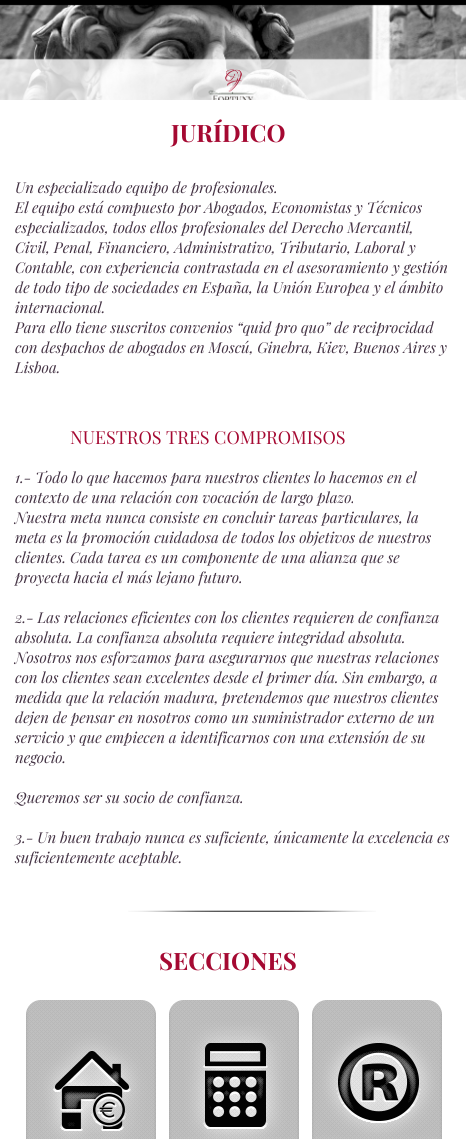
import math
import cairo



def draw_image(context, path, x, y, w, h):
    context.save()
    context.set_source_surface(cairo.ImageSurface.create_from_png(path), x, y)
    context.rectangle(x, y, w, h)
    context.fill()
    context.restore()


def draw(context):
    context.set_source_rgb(1, 1, 1)
    context.paint()
    draw_image(context, "images/1.png", 0, 0, 466, 100)
    draw_image(context, "images/2.png", 128, 910, 248, 2)
    draw_image(context, "images/3.png", 26, 1000, 130, 139)
    draw_image(context, "images/4.png", 169, 1000, 130, 139)
    draw_image(context, "images/5.png", 312, 1000, 130, 139)
    context.select_font_face("Playfair Display", cairo.FontSlant.NORMAL, cairo.FontWeight.BOLD)
    context.set_font_size(24)
    context.set_source_rgb(165 / 255, 9 / 255, 50 / 255)
    context.move_to(171, 142)
    context.show_text("JURÍDICO")
    context.select_font_face("Playfair Display", cairo.FontSlant.ITALIC)
    context.set_font_size(15)
    context.set_source_rgb(68 / 255, 51 / 255, 68 / 255)
    context.move_to(15, 193)
    context.show_text("Un especializado equipo de profesionales.")
    context.move_to(15, 213)
    context.show_text("El equipo está compuesto por Abogados, Economistas y Técnicos")
    context.move_to(15, 233)
    context.show_text("especializados, todos ellos profesionales del Derecho Mercantil,")
    context.move_to(15, 253)
    context.show_text("Civil, Penal, Financiero, Administrativo, Tributario, Laboral y")
    context.move_to(15, 273)
    context.show_text("Contable, con experiencia contrastada en el asesoramiento y gestión")
    context.move_to(15, 293)
    context.show_text("de todo tipo de sociedades en España, la Unión Europea y el ámbito")
    context.move_to(15, 313)
    context.show_text("internacional.")
    context.move_to(15, 333)
    context.show_text("Para ello tiene suscritos convenios “quid pro quo” de reciprocidad")
    context.move_to(15, 353)
    context.show_text("con despachos de abogados en Moscú, Ginebra, Kiev, Buenos Aires y")
    context.move_to(15, 373)
    context.show_text("Lisboa.")
    context.select_font_face("Playfair Display")
    context.set_font_size(18)
    context.set_source_rgb(165 / 255, 9 / 255, 50 / 255)
    context.move_to(70, 444)
    context.show_text("NUESTROS TRES COMPROMISOS")
    context.select_font_face("Playfair Display", cairo.FontSlant.ITALIC)
    context.set_font_size(15)
    context.set_source_rgb(68 / 255, 51 / 255, 68 / 255)
    context.move_to(15, 483)
    context.show_text("1.- Todo lo que hacemos para nuestros clientes lo hacemos en el")
    context.move_to(15, 503)
    context.show_text("contexto de una relación con vocación de largo plazo.")
    context.move_to(15, 523)
    context.show_text("Nuestra meta nunca consiste en concluir tareas particulares, la")
    context.move_to(15, 543)
    context.show_text("meta es la promoción cuidadosa de todos los objetivos de nuestros")
    context.move_to(15, 563)
    context.show_text("clientes. Cada tarea es un componente de una alianza que se")
    context.move_to(15, 583)
    context.show_text("proyecta hacia el más lejano futuro.")
    context.move_to(15, 623)
    context.show_text("2.- Las relaciones eficientes con los clientes requieren de confianza")
    context.move_to(15, 643)
    context.show_text("absoluta. La confianza absoluta requiere integridad absoluta.")
    context.move_to(15, 663)
    context.show_text("Nosotros nos esforzamos para asegurarnos que nuestras relaciones")
    context.move_to(15, 683)
    context.show_text("con los clientes sean excelentes desde el primer día. Sin embargo, a")
    context.move_to(15, 703)
    context.show_text("medida que la relación madura, pretendemos que nuestros clientes")
    context.move_to(15, 723)
    context.show_text("dejen de pensar en nosotros como un suministrador externo de un")
    context.move_to(15, 743)
    context.show_text("servicio y que empiecen a identificarnos con una extensión de su")
    context.move_to(15, 763)
    context.show_text("negocio.")
    context.move_to(15, 803)
    context.show_text("Queremos ser su socio de confianza.")
    context.move_to(15, 843)
    context.show_text("3.- Un buen trabajo nunca es suficiente, únicamente la excelencia es")
    context.move_to(15, 863)
    context.show_text("suficientemente aceptable.")
    context.select_font_face("Playfair Display", cairo.FontSlant.NORMAL, cairo.FontWeight.BOLD)
    context.set_font_size(24)
    context.set_source_rgb(165 / 255, 9 / 255, 50 / 255)
    context.move_to(159, 970)
    context.show_text("SECCIONES")


surface = cairo.ImageSurface(cairo.Format.RGB24, 466, 1139)
context = cairo.Context(surface)
options = cairo.FontOptions()
options.set_hint_metrics(cairo.HintMetrics.OFF)
options.set_hint_style(cairo.HintStyle.NONE)
context.set_font_options(options)
context.set_miter_limit(4)
draw(context)
surface.write_to_png("out.png")
